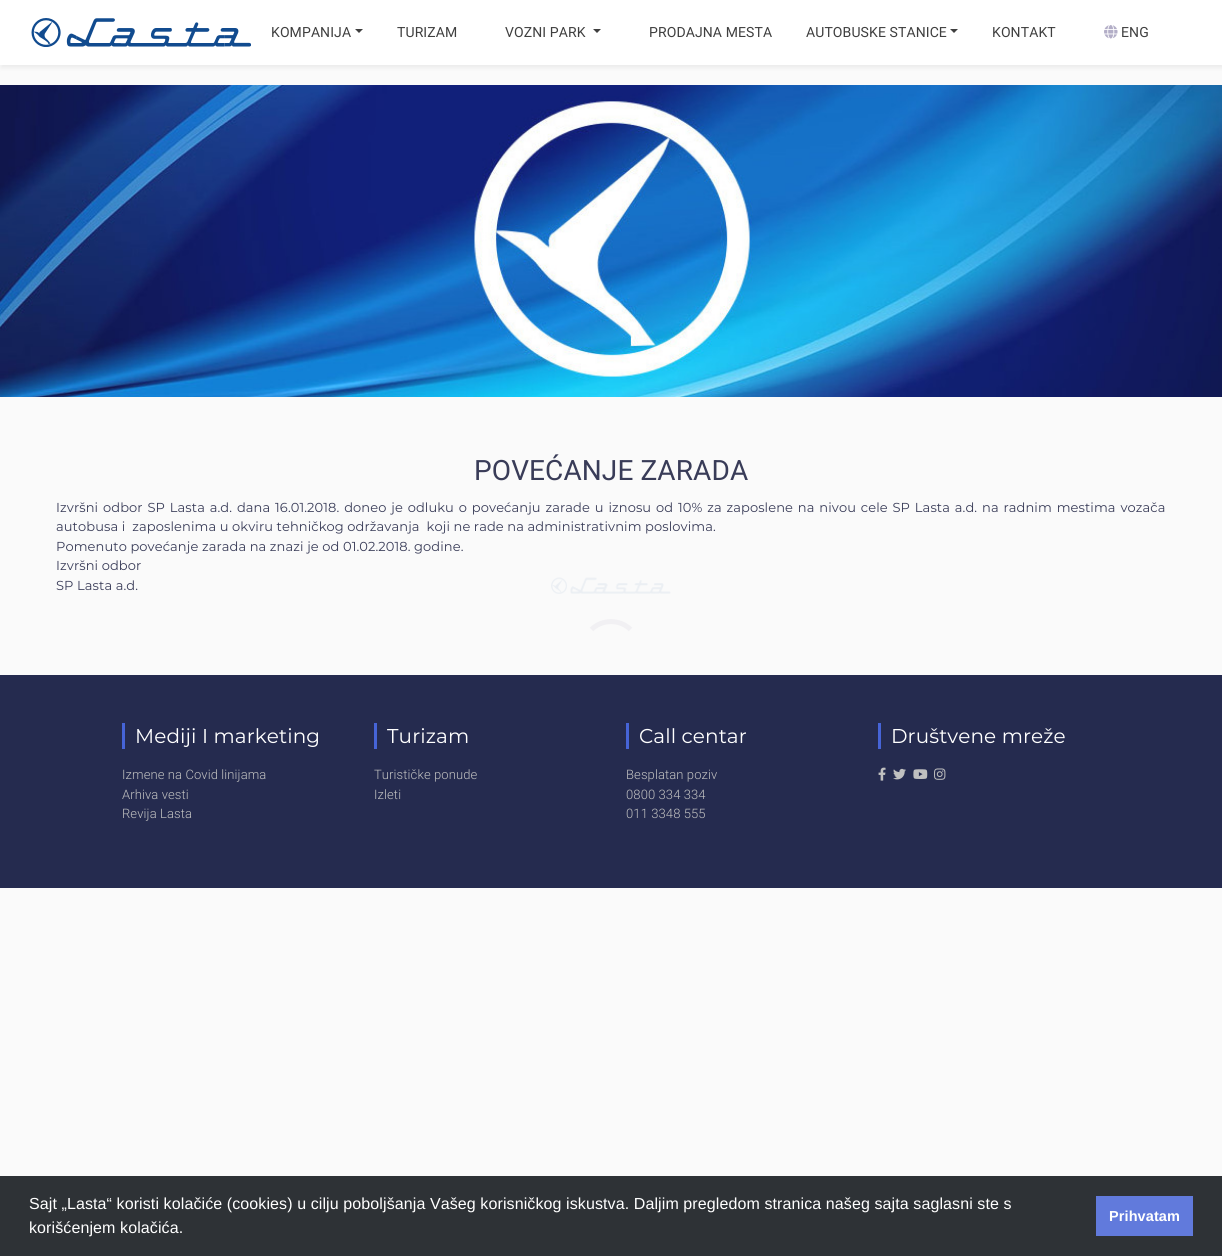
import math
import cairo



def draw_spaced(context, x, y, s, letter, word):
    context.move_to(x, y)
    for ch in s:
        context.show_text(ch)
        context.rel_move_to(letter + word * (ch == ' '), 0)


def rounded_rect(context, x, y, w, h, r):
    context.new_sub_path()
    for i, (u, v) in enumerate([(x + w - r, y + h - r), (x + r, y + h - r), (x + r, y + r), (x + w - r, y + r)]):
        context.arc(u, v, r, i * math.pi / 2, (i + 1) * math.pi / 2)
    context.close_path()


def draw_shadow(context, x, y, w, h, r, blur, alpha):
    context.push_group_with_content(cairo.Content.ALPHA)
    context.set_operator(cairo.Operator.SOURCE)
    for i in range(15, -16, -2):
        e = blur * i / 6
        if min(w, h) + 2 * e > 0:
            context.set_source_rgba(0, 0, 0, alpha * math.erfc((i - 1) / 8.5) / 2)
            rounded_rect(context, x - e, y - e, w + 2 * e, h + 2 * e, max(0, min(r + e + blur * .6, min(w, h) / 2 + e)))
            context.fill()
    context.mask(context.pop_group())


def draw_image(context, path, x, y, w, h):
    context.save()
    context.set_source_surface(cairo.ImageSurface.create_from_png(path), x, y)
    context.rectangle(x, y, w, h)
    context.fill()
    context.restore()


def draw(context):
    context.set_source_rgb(250 / 255, 250 / 255, 250 / 255)
    context.paint()
    context.set_source_rgb(178 / 255, 178 / 255, 178 / 255)
    draw_shadow(context, 1, 3, 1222, 65, 0, 2, 0.2)
    context.set_source_rgb(1, 1, 1)
    context.rectangle(0, 0, 1222, 65)
    context.fill()
    draw_image(context, "images/1.png", 31, 18, 220, 29)
    context.set_source_rgb(63 / 255, 63 / 255, 63 / 255)
    context.new_path()
    context.move_to(355, 29)
    context.line_to(363, 29)
    context.line_to(359, 33)
    context.close_path()
    context.fill()
    context.new_path()
    context.move_to(593, 29)
    context.line_to(601, 29)
    context.line_to(597, 33)
    context.close_path()
    context.fill()
    context.new_path()
    context.move_to(950, 29)
    context.line_to(958, 29)
    context.line_to(954, 33)
    context.close_path()
    context.fill()
    draw_image(context, "images/2.png", 1104, 25, 14, 14)
    draw_image(context, "images/3.png", 0, 85, 1222, 312)
    draw_image(context, "images/4.png", 551, 577, 120, 17)
    context.new_path()
    context.move_to(591.5, 629.5)
    context.curve_to(602, 619, 620, 619, 630.5, 629.5)
    context.set_source_rgb(241 / 255, 240 / 255, 243 / 255)
    context.set_line_width(5)
    context.stroke()
    context.set_source_rgb(37 / 255, 43 / 255, 79 / 255)
    context.rectangle(0, 675, 1222, 213)
    context.fill()
    context.set_source_rgb(70 / 255, 100 / 255, 215 / 255)
    context.rectangle(122, 723, 3, 26)
    context.fill()
    context.rectangle(374, 723, 3, 26)
    context.fill()
    context.rectangle(626, 723, 3, 26)
    context.fill()
    context.rectangle(878, 723, 3, 26)
    context.fill()
    draw_image(context, "images/5.png", 878, 767, 8, 14)
    draw_image(context, "images/6.png", 893, 768, 13, 12)
    draw_image(context, "images/7.png", 913, 769, 15, 10)
    draw_image(context, "images/8.png", 934, 768, 12, 12)
    context.set_source_rgb(46 / 255, 50 / 255, 54 / 255)
    context.rectangle(0, 1176, 1222, 80)
    context.fill()
    context.set_source_rgb(97 / 255, 122 / 255, 220 / 255)
    context.rectangle(1096, 1196, 97, 40)
    context.fill()
    context.select_font_face("Roboto")
    context.set_font_size(14)
    context.set_source_rgb(63 / 255, 63 / 255, 63 / 255)
    draw_spaced(context, 271, 37, "KOMPANIJA", 0.1, 0)
    draw_spaced(context, 397, 37, "TURIZAM", 0.1, 0)
    draw_spaced(context, 505, 37, "VOZNI PARK", 0.1, 0)
    draw_spaced(context, 649, 37, "PRODAJNA MESTA", 0.1, 0)
    draw_spaced(context, 806, 37, "AUTOBUSKE STANICE", 0.1, 0)
    draw_spaced(context, 992, 37, "KONTAKT", 0.1, 0)
    draw_spaced(context, 1121, 37, "ENG", 0.1, 0)
    context.set_font_size(28)
    context.set_source_rgb(57 / 255, 60 / 255, 88 / 255)
    draw_spaced(context, 474, 480, "POVEĆANJE ZARADA", 0.1, 0)
    context.select_font_face("Montserrat Thin")
    context.set_font_size(13)
    draw_spaced(context, 56, 512, "Izvršni odbor SP Lasta a.d. dana 16.01.2018. doneo je odluku o povećanju zarade u iznosu od 10% za zaposlene na nivou cele SP Lasta a.d. na radnim mestima vozača", 0.1, 1.3)
    draw_spaced(context, 56, 531, "autobusa i  zaposlenima u okviru tehničkog održavanja  koji ne rade na administrativnim poslovima.", 0.1, 0)
    draw_spaced(context, 56, 551, "Pomenuto povećanje zarada na znazi je od 01.02.2018. godine.", 0.1, 0)
    draw_spaced(context, 56, 570, "Izvršni odbor", 0.1, 0)
    draw_spaced(context, 56, 590, "SP Lasta a.d.", 0.1, 0)
    context.set_font_size(20)
    context.set_source_rgb(1, 1, 1)
    draw_spaced(context, 135, 743, "Mediji I marketing", 0.1, 0)
    context.select_font_face("Roboto Light")
    context.set_font_size(13)
    context.set_source_rgb(192 / 255, 192 / 255, 192 / 255)
    draw_spaced(context, 122, 779, "Izmene na Covid linijama", 0.1, 0)
    draw_spaced(context, 122, 799, "Arhiva vesti", 0.1, 0)
    draw_spaced(context, 122, 818, "Revija Lasta", 0.1, 0)
    context.select_font_face("Montserrat Thin")
    context.set_font_size(20)
    context.set_source_rgb(1, 1, 1)
    draw_spaced(context, 387, 743, "Turizam", 0.1, 0)
    context.select_font_face("Roboto Light")
    context.set_font_size(13)
    context.set_source_rgb(192 / 255, 192 / 255, 192 / 255)
    draw_spaced(context, 374, 779, "Turističke ponude", 0.1, 0)
    draw_spaced(context, 374, 799, "Izleti", 0.1, 0)
    context.select_font_face("Montserrat Thin")
    context.set_font_size(20)
    context.set_source_rgb(1, 1, 1)
    draw_spaced(context, 639, 743, "Call centar", 0.1, 0)
    context.select_font_face("Roboto Light")
    context.set_font_size(13)
    context.set_source_rgb(192 / 255, 192 / 255, 192 / 255)
    draw_spaced(context, 626, 779, "Besplatan poziv", 0.1, 0)
    draw_spaced(context, 626, 799, "0800 334 334", 0.1, 0)
    draw_spaced(context, 626, 818, "011 3348 555", 0.1, 0)
    context.select_font_face("Montserrat Thin")
    context.set_font_size(20)
    context.set_source_rgb(1, 1, 1)
    draw_spaced(context, 891, 743, "Društvene mreže", 0.1, 0)
    context.select_font_face("Liberation Sans")
    context.set_font_size(16)
    draw_spaced(context, 29, 1209, "Sajt „Lasta“ koristi kolačiće (cookies) u cilju poboljšanja Vašeg korisničkog iskustva. Daljim pregledom stranica našeg sajta saglasni ste s", 0.1, 0)
    draw_spaced(context, 29, 1233, "korišćenjem kolačića.", 0.1, 0)
    context.select_font_face("Liberation Sans", cairo.FontSlant.NORMAL, cairo.FontWeight.BOLD)
    context.set_font_size(14.5)
    draw_spaced(context, 1109, 1221, "Prihvatam", 0.1, 0)


surface = cairo.ImageSurface(cairo.Format.RGB24, 1222, 1256)
context = cairo.Context(surface)
options = cairo.FontOptions()
options.set_hint_metrics(cairo.HintMetrics.OFF)
options.set_hint_style(cairo.HintStyle.NONE)
context.set_font_options(options)
context.set_miter_limit(4)
draw(context)
surface.write_to_png("out.png")
